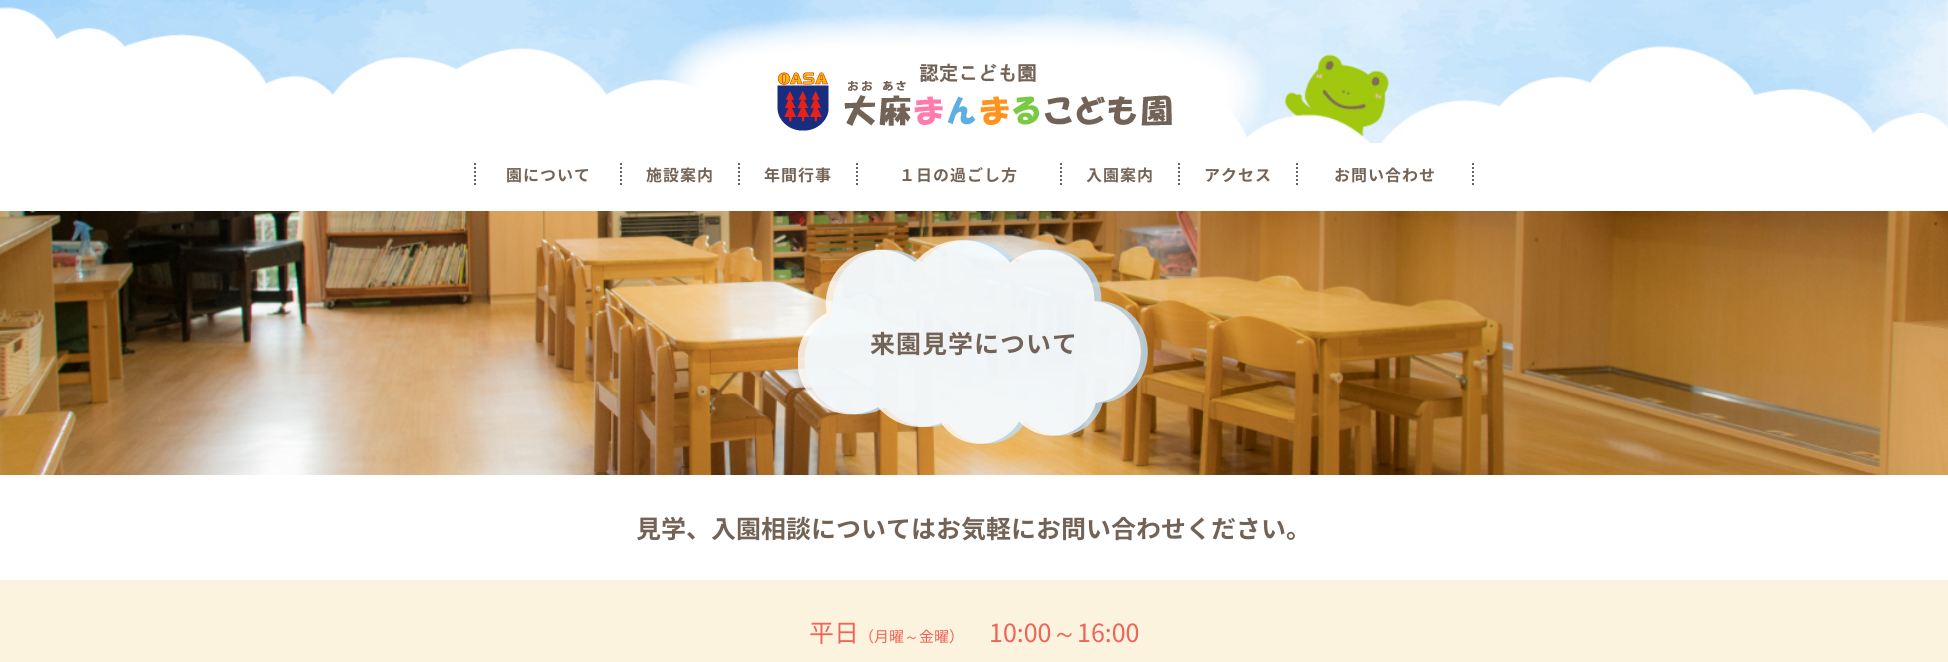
import math
import cairo



def draw_spaced(context, x, y, s, letter, word):
    context.move_to(x, y)
    for ch in s:
        context.show_text(ch)
        context.rel_move_to(letter + word * (ch == ' '), 0)


def draw_image(context, path, x, y, w, h):
    context.save()
    context.set_source_surface(cairo.ImageSurface.create_from_png(path), x, y)
    context.rectangle(x, y, w, h)
    context.fill()
    context.restore()


def draw(context):
    context.set_source_rgb(1, 1, 1)
    context.paint()
    draw_image(context, "images/1.png", 0, 0, 1948, 143)
    draw_image(context, "images/2.png", 777, 63, 395, 68)
    context.new_path()
    context.move_to(475, 163)
    context.line_to(475, 186)
    context.set_source_rgb(102 / 255, 102 / 255, 102 / 255)
    context.set_dash([2, 2])
    context.stroke()
    context.new_path()
    context.move_to(621, 163)
    context.line_to(621, 186)
    context.stroke()
    context.new_path()
    context.move_to(739, 163)
    context.line_to(739, 186)
    context.stroke()
    context.new_path()
    context.move_to(857, 163)
    context.line_to(857, 186)
    context.stroke()
    context.new_path()
    context.move_to(1061, 163)
    context.line_to(1061, 186)
    context.stroke()
    context.new_path()
    context.move_to(1179, 163)
    context.line_to(1179, 186)
    context.stroke()
    context.new_path()
    context.move_to(1473, 163)
    context.line_to(1473, 186)
    context.stroke()
    context.new_path()
    context.move_to(1297, 163)
    context.line_to(1297, 186)
    context.stroke()
    draw_image(context, "images/3.png", 0, 211, 1948, 264)
    draw_image(context, "images/4.png", 798, 240, 350, 204)
    context.set_source_rgb(251 / 255, 243 / 255, 221 / 255)
    context.rectangle(0, 580, 1948, 82)
    context.fill()
    context.select_font_face("Noto Sans JP", cairo.FontSlant.NORMAL, cairo.FontWeight.BOLD)
    context.set_font_size(16)
    context.set_source_rgb(115 / 255, 99 / 255, 87 / 255)
    draw_spaced(context, 506, 181, "園について", 1, 0)
    draw_spaced(context, 646, 181, "施設案内", 1, 0)
    draw_spaced(context, 764, 181, "年間行事", 1, 0)
    draw_spaced(context, 899, 181, "１日の過ごし方", 1, 0)
    draw_spaced(context, 1086, 181, "入園案内", 1, 0)
    draw_spaced(context, 1204, 181, "アクセス", 1, 0)
    draw_spaced(context, 1334, 181, "お問い合わせ", 1, 0)
    context.set_font_size(25)
    draw_spaced(context, 870, 353, "来園見学について", 1, 0)
    context.move_to(636, 538)
    context.show_text("見学、入園相談についてはお気軽にお問い合わせください。")
    context.select_font_face("Noto Sans JP")
    context.set_source_rgb(239 / 255, 99 / 255, 89 / 255)
    context.move_to(809, 642)
    context.show_text("平日")
    context.set_font_size(15)
    context.move_to(859, 642)
    context.show_text("（月曜")
    context.select_font_face("WenQuanYi Zen Hei Medium")
    context.move_to(904, 642)
    context.show_text("～")
    context.select_font_face("Noto Sans JP")
    context.move_to(919, 642)
    context.show_text("金曜）")
    context.set_font_size(25)
    context.move_to(989, 642)
    context.show_text("10:00")
    context.select_font_face("WenQuanYi Zen Hei Medium")
    context.move_to(1052, 642)
    context.show_text("～")
    context.select_font_face("Noto Sans JP")
    context.move_to(1077, 642)
    context.show_text("16:00")


surface = cairo.ImageSurface(cairo.Format.RGB24, 1948, 662)
context = cairo.Context(surface)
options = cairo.FontOptions()
options.set_hint_metrics(cairo.HintMetrics.OFF)
options.set_hint_style(cairo.HintStyle.NONE)
context.set_font_options(options)
context.set_miter_limit(4)
draw(context)
surface.write_to_png("out.png")
